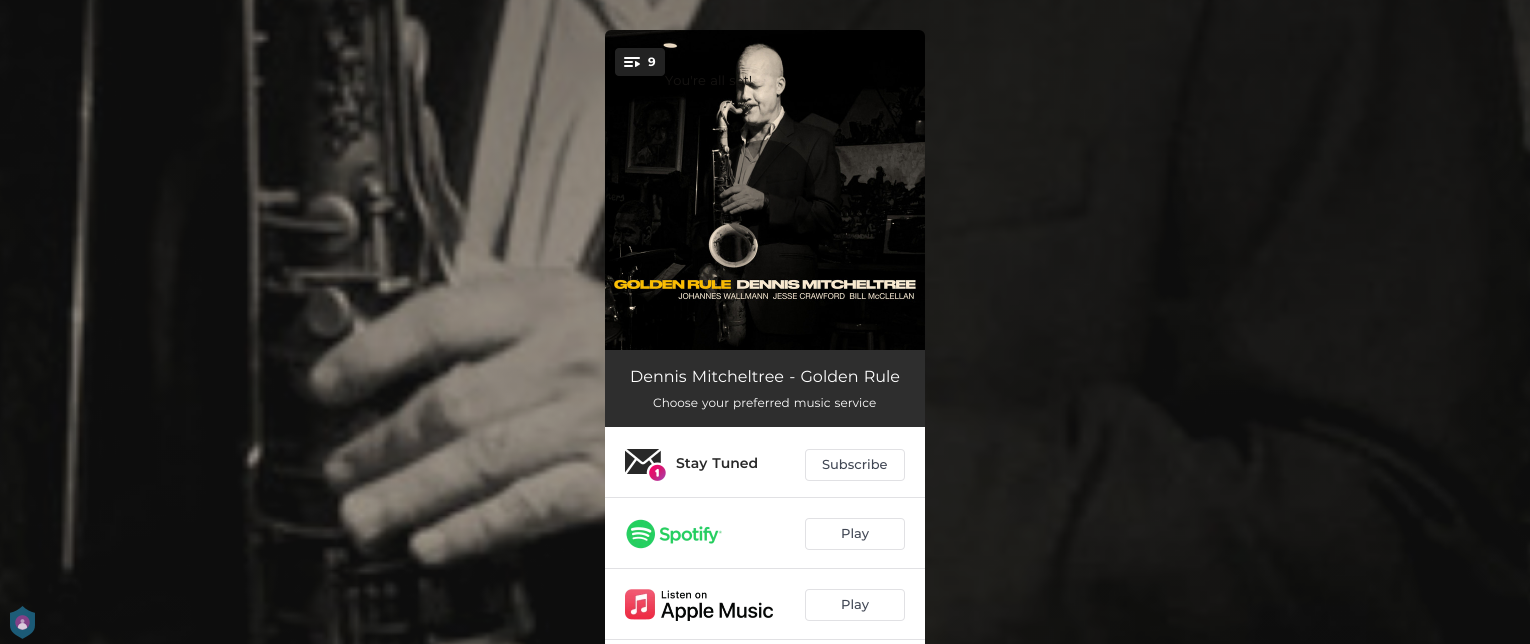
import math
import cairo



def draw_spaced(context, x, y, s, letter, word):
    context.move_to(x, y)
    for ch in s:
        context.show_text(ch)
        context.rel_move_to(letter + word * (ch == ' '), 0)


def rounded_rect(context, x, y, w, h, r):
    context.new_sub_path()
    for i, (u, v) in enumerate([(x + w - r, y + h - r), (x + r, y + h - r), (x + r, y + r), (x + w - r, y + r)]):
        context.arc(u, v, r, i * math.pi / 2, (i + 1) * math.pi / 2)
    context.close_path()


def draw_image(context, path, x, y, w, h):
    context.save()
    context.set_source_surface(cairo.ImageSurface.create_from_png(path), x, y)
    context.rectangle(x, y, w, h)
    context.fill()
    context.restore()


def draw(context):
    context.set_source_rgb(1, 1, 1)
    context.paint()
    draw_image(context, "images/1.png", 0, 0, 1530, 644)
    draw_image(context, "images/2.png", 605, 30, 320, 320)
    context.set_source_rgba(40 / 255, 40 / 255, 40 / 255, 0.85)
    rounded_rect(context, 615, 48, 50, 28, 4)
    context.fill()
    draw_image(context, "images/3.png", 624, 57, 16, 10)
    context.set_source_rgba(0, 0, 0, 0.45)
    context.arc(765, 190, 50, 0, 2 * math.pi)
    context.fill()
    context.set_source_rgb(46 / 255, 46 / 255, 46 / 255)
    context.rectangle(605, 350, 320, 77)
    context.fill()
    context.set_source_rgb(1, 1, 1)
    context.rectangle(605, 427, 320, 217)
    context.fill()
    context.set_source_rgb(225 / 255, 225 / 255, 228 / 255)
    context.rectangle(605, 497, 320, 1)
    context.fill()
    draw_image(context, "images/4.png", 625, 449, 41, 32)
    rounded_rect(context, 805.5, 449.5, 99, 31, 3.5)
    context.set_line_width(1)
    context.stroke()
    context.rectangle(605, 568, 320, 1)
    context.fill()
    draw_image(context, "images/5.png", 626, 519, 96, 30)
    rounded_rect(context, 805.5, 518.5, 99, 31, 3.5)
    context.stroke()
    context.rectangle(605, 639, 320, 1)
    context.fill()
    draw_image(context, "images/6.png", 625, 589, 148, 32)
    rounded_rect(context, 805.5, 589.5, 99, 31, 3.5)
    context.stroke()
    draw_image(context, "images/7.png", 10, 606, 25, 33)
    context.select_font_face("Montserrat", cairo.FontSlant.NORMAL, cairo.FontWeight.BOLD)
    context.set_font_size(12)
    context.set_source_rgb(1, 1, 1)
    context.move_to(648, 66)
    context.show_text("9")
    context.select_font_face("Montserrat")
    context.set_font_size(13)
    context.set_source_rgb(22 / 255, 20 / 255, 18 / 255)
    draw_spaced(context, 665, 85, "You're all set!", 0, 1)
    context.set_font_size(16)
    context.set_source_rgb(1, 1, 1)
    draw_spaced(context, 630, 382, "Dennis Mitcheltree - Golden Rule", 0, 1)
    context.set_font_size(12)
    draw_spaced(context, 653, 407, "Choose your preferred music service", 0, 1)
    context.select_font_face("Montserrat SemiBold")
    context.set_font_size(14)
    context.set_source_rgb(40 / 255, 40 / 255, 40 / 255)
    draw_spaced(context, 676, 468, "Stay Tuned", 0, 1)
    context.select_font_face("Montserrat Medium")
    context.set_font_size(13)
    context.set_source_rgb(65 / 255, 71 / 255, 84 / 255)
    context.move_to(822, 469)
    context.show_text("Subscribe")
    context.move_to(841, 538)
    context.show_text("Play")
    context.move_to(841, 609)
    context.show_text("Play")


surface = cairo.ImageSurface(cairo.Format.RGB24, 1530, 644)
context = cairo.Context(surface)
options = cairo.FontOptions()
options.set_hint_metrics(cairo.HintMetrics.OFF)
options.set_hint_style(cairo.HintStyle.NONE)
context.set_font_options(options)
context.set_miter_limit(4)
draw(context)
surface.write_to_png("out.png")
